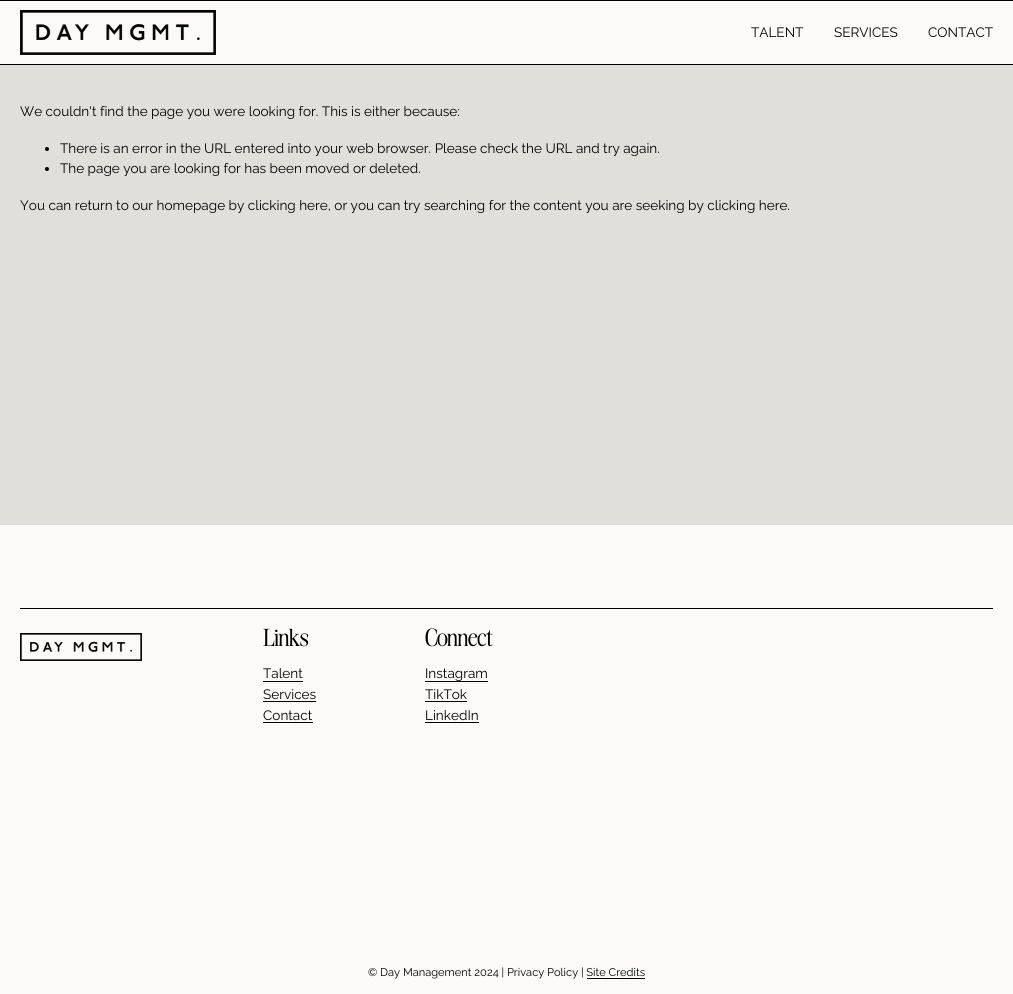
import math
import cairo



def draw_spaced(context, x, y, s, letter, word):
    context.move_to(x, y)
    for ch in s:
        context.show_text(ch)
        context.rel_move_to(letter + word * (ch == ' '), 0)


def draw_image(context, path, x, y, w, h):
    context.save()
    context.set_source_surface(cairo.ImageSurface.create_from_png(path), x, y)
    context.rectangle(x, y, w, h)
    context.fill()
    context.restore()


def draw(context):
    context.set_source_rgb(225 / 255, 223 / 255, 217 / 255)
    context.paint()
    context.set_source_rgb(0, 0, 0)
    context.rectangle(0, 0, 1013, 1)
    context.fill()
    context.rectangle(0, 64, 1013, 1)
    context.fill()
    context.set_source_rgb(251 / 255, 250 / 255, 249 / 255)
    context.rectangle(0, 1, 1013, 63)
    context.fill()
    draw_image(context, "images/1.png", 20, 10, 196, 45)
    context.set_source_rgb(0, 0, 0)
    context.arc(47, 149, 2, 0, 2 * math.pi)
    context.fill()
    context.arc(47, 169, 2, 0, 2 * math.pi)
    context.fill()
    context.set_source_rgb(251 / 255, 250 / 255, 249 / 255)
    context.rectangle(0, 525, 1013, 469)
    context.fill()
    context.set_source_rgb(0, 0, 0)
    context.rectangle(20, 608, 973, 1)
    context.fill()
    draw_image(context, "images/2.png", 20, 633, 122, 28)
    context.rectangle(263, 681, 40, 1)
    context.fill()
    context.rectangle(425, 681, 63, 1)
    context.fill()
    context.rectangle(263, 701, 53, 1)
    context.fill()
    context.rectangle(425, 701, 42, 1)
    context.fill()
    context.rectangle(263, 722, 50, 1)
    context.fill()
    context.rectangle(425, 722, 54, 1)
    context.fill()
    context.rectangle(587, 978, 58, 1)
    context.fill()
    context.select_font_face("Raleway")
    context.set_font_size(13.57)
    context.move_to(751, 37)
    context.show_text("TALENT")
    context.move_to(834, 37)
    context.show_text("SERVICES")
    context.move_to(928, 37)
    context.show_text("CONTACT")
    context.move_to(20, 116)
    context.show_text("We couldn't find the page you were looking for. This is either because:")
    context.move_to(60, 153)
    context.show_text("There is an error in the URL entered into your web browser. Please check the URL and try again.")
    context.move_to(60, 173)
    context.show_text("The page you are looking for has been moved or deleted.")
    context.move_to(20, 210)
    context.show_text("You can return to our homepage by clicking here, or you can try searching for the content you are seeking by clicking here.")
    context.select_font_face("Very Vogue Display")
    context.set_font_size(26)
    draw_spaced(context, 263, 646, "Links", -0.5, 0)
    draw_spaced(context, 425, 646, "Connect", -0.5, 0)
    context.select_font_face("Raleway")
    context.set_font_size(13.57)
    context.move_to(263, 678)
    context.show_text("Talent")
    context.move_to(425, 678)
    context.show_text("Instagram")
    context.move_to(263, 699)
    context.show_text("Services")
    context.move_to(425, 699)
    context.show_text("TikTok")
    context.move_to(263, 720)
    context.show_text("Contact")
    context.move_to(425, 720)
    context.show_text("LinkedIn")
    context.set_font_size(11.1)
    context.move_to(368, 976)
    context.show_text("© Day Management 2024 | Privacy Policy | Site Credits")


surface = cairo.ImageSurface(cairo.Format.RGB24, 1013, 994)
context = cairo.Context(surface)
options = cairo.FontOptions()
options.set_hint_metrics(cairo.HintMetrics.OFF)
options.set_hint_style(cairo.HintStyle.NONE)
context.set_font_options(options)
context.set_miter_limit(4)
draw(context)
surface.write_to_png("out.png")
